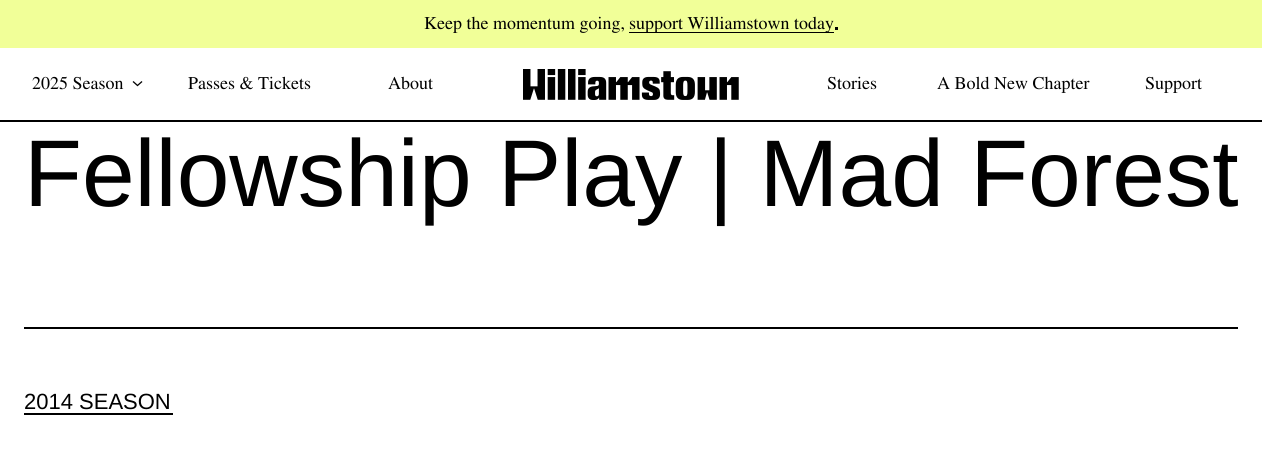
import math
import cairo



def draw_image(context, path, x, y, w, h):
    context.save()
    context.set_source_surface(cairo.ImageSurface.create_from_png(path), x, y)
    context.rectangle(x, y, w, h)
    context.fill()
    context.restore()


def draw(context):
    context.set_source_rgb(1, 1, 1)
    context.paint()
    context.set_source_rgb(241 / 255, 1, 152 / 255)
    context.rectangle(0, 0, 1262, 48)
    context.fill()
    draw_image(context, "images/1.png", 424, 16, 200, 17)
    draw_image(context, "images/2.png", 629, 16, 205, 16)
    context.set_source_rgb(2 / 255, 3 / 255, 2 / 255)
    context.rectangle(835, 27, 3, 3)
    context.fill()
    context.set_source_rgb(0, 0, 0)
    context.rectangle(629, 32, 205, 1)
    context.fill()
    context.rectangle(0, 120, 1262, 2)
    context.fill()
    draw_image(context, "images/3.png", 32, 76, 92, 14)
    context.new_path()
    context.move_to(133, 81.5)
    context.line_to(137.5, 85.5)
    context.line_to(142, 81.5)
    context.set_line_width(1.3)
    context.stroke()
    draw_image(context, "images/4.png", 188, 76, 123, 14)
    draw_image(context, "images/5.png", 388, 76, 45, 14)
    draw_image(context, "images/6.png", 523, 69, 216, 31)
    draw_image(context, "images/7.png", 827, 76, 50, 14)
    draw_image(context, "images/8.png", 937, 76, 153, 17)
    draw_image(context, "images/9.png", 1145, 76, 57, 17)
    context.rectangle(24, 327, 1214, 2)
    context.fill()
    context.rectangle(24, 413, 149, 2)
    context.fill()
    context.select_font_face("Liberation Sans")
    context.set_font_size(94.75)
    context.move_to(24, 206)
    context.show_text("Fellowship Play | Mad Forest")
    context.set_font_size(22)
    context.move_to(24, 409)
    context.show_text("2014 SEASON")


surface = cairo.ImageSurface(cairo.Format.RGB24, 1262, 450)
context = cairo.Context(surface)
options = cairo.FontOptions()
options.set_hint_metrics(cairo.HintMetrics.OFF)
options.set_hint_style(cairo.HintStyle.NONE)
context.set_font_options(options)
context.set_miter_limit(4)
draw(context)
surface.write_to_png("out.png")
